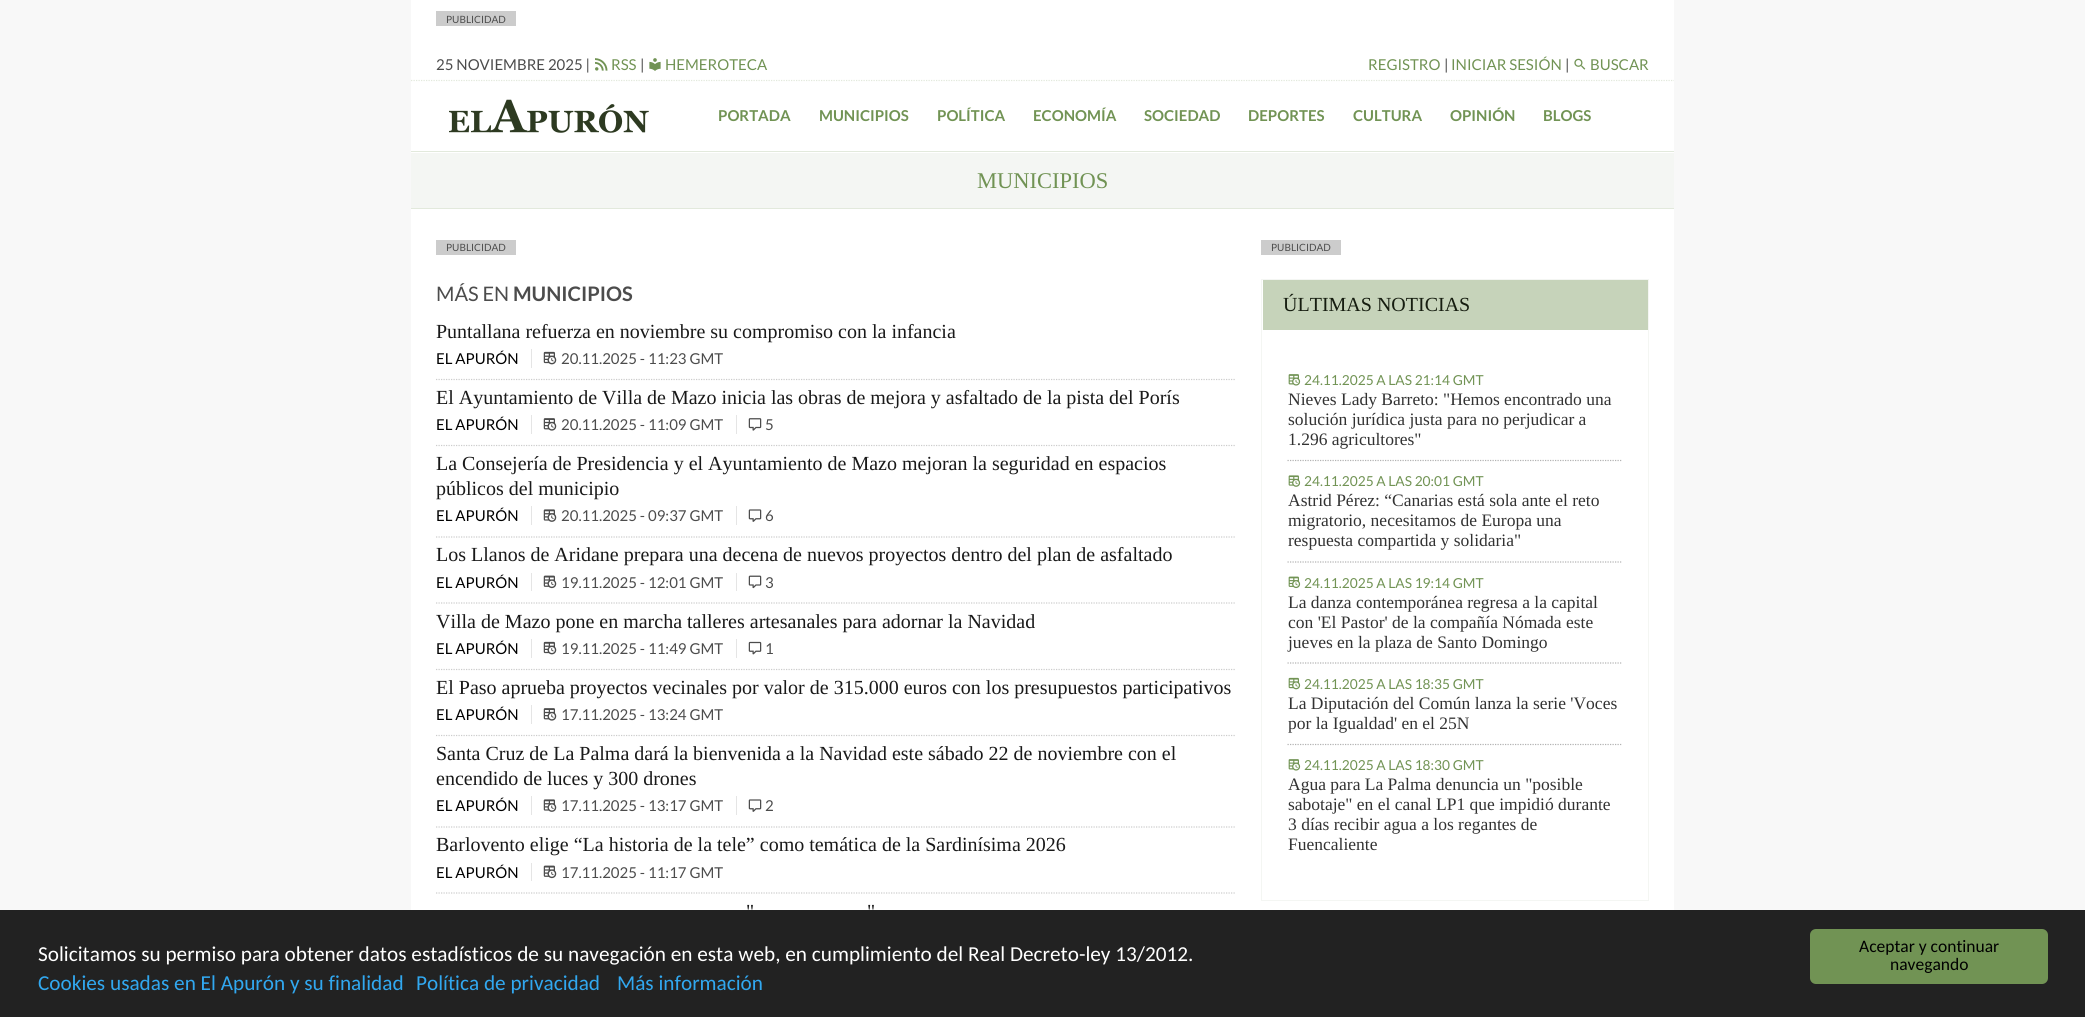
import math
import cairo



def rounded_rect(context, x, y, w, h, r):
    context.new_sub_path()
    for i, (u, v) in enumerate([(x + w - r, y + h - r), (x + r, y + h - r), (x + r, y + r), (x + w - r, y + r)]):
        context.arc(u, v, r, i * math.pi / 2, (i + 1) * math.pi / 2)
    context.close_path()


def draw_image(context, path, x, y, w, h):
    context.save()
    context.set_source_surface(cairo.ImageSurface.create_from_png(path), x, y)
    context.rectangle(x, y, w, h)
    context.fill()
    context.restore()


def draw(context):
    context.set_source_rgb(248 / 255, 248 / 255, 248 / 255)
    context.paint()
    context.set_source_rgb(1, 1, 1)
    context.rectangle(411, 0, 1263, 910)
    context.fill()
    context.set_source_rgb(204 / 255, 204 / 255, 204 / 255)
    context.rectangle(436, 11, 80, 15)
    context.fill()
    draw_image(context, "images/1.png", 595, 58, 13, 13)
    draw_image(context, "images/2.png", 649, 58, 12, 13)
    draw_image(context, "images/3.png", 1574, 58, 12, 12)
    context.new_path()
    context.move_to(411, 80.5)
    context.line_to(1674, 80.5)
    context.set_source_rgb(226 / 255, 233 / 255, 220 / 255)
    context.set_line_width(1.2)
    context.set_dash([1.25, 1.25])
    context.stroke()
    context.rectangle(411, 151, 1263, 1)
    context.fill()
    draw_image(context, "images/4.png", 449, 99, 200, 34)
    context.set_source_rgb(244 / 255, 246 / 255, 243 / 255)
    context.rectangle(411, 153, 1263, 55)
    context.fill()
    context.set_source_rgb(226 / 255, 233 / 255, 220 / 255)
    context.rectangle(411, 208, 1263, 1)
    context.fill()
    context.set_source_rgb(204 / 255, 204 / 255, 204 / 255)
    context.rectangle(436, 240, 80, 15)
    context.fill()
    context.new_path()
    context.move_to(436, 379.5)
    context.line_to(1236, 379.5)
    context.stroke()
    context.set_source_rgb(229 / 255, 229 / 255, 229 / 255)
    context.rectangle(531, 349, 1, 19)
    context.fill()
    draw_image(context, "images/5.png", 543, 351, 14, 14)
    context.new_path()
    context.move_to(436, 445.5)
    context.line_to(1236, 445.5)
    context.set_source_rgb(204 / 255, 204 / 255, 204 / 255)
    context.stroke()
    context.set_source_rgb(229 / 255, 229 / 255, 229 / 255)
    context.rectangle(531, 415, 1, 19)
    context.fill()
    draw_image(context, "images/6.png", 543, 418, 14, 13)
    context.rectangle(736, 415, 1, 19)
    context.fill()
    draw_image(context, "images/7.png", 748, 418, 14, 13)
    context.new_path()
    context.move_to(436, 537)
    context.line_to(1236, 537)
    context.set_source_rgb(204 / 255, 204 / 255, 204 / 255)
    context.stroke()
    context.set_source_rgb(229 / 255, 229 / 255, 229 / 255)
    context.rectangle(531, 506, 1, 19)
    context.fill()
    draw_image(context, "images/8.png", 543, 509, 14, 13)
    context.rectangle(736, 506, 1, 19)
    context.fill()
    draw_image(context, "images/9.png", 748, 509, 14, 13)
    context.new_path()
    context.move_to(436, 603)
    context.line_to(1236, 603)
    context.set_source_rgb(204 / 255, 204 / 255, 204 / 255)
    context.stroke()
    context.set_source_rgb(229 / 255, 229 / 255, 229 / 255)
    context.rectangle(531, 573, 1, 18)
    context.fill()
    draw_image(context, "images/10.png", 543, 575, 14, 14)
    context.rectangle(736, 573, 1, 18)
    context.fill()
    draw_image(context, "images/11.png", 748, 575, 14, 14)
    context.new_path()
    context.move_to(436, 669.5)
    context.line_to(1236, 669.5)
    context.set_source_rgb(204 / 255, 204 / 255, 204 / 255)
    context.stroke()
    context.set_source_rgb(229 / 255, 229 / 255, 229 / 255)
    context.rectangle(531, 639, 1, 19)
    context.fill()
    draw_image(context, "images/5.png", 543, 641, 14, 14)
    context.rectangle(736, 639, 1, 19)
    context.fill()
    draw_image(context, "images/12.png", 748, 641, 14, 14)
    context.new_path()
    context.move_to(436, 735.5)
    context.line_to(1236, 735.5)
    context.set_source_rgb(204 / 255, 204 / 255, 204 / 255)
    context.stroke()
    context.set_source_rgb(229 / 255, 229 / 255, 229 / 255)
    context.rectangle(531, 705, 1, 19)
    context.fill()
    draw_image(context, "images/6.png", 543, 708, 14, 13)
    context.new_path()
    context.move_to(436, 827)
    context.line_to(1236, 827)
    context.set_source_rgb(204 / 255, 204 / 255, 204 / 255)
    context.stroke()
    context.set_source_rgb(229 / 255, 229 / 255, 229 / 255)
    context.rectangle(531, 796, 1, 19)
    context.fill()
    draw_image(context, "images/8.png", 543, 799, 14, 13)
    context.rectangle(736, 796, 1, 19)
    context.fill()
    draw_image(context, "images/9.png", 748, 799, 14, 13)
    context.new_path()
    context.move_to(436, 893)
    context.line_to(1236, 893)
    context.set_source_rgb(204 / 255, 204 / 255, 204 / 255)
    context.stroke()
    context.set_source_rgb(229 / 255, 229 / 255, 229 / 255)
    context.rectangle(531, 863, 1, 18)
    context.fill()
    draw_image(context, "images/10.png", 543, 865, 14, 14)
    context.set_source_rgb(204 / 255, 204 / 255, 204 / 255)
    context.rectangle(1261, 240, 80, 15)
    context.fill()
    context.rectangle(1261.5, 279.5, 387, 621)
    context.set_source_rgb(244 / 255, 246 / 255, 243 / 255)
    context.set_line_width(1)
    context.set_dash([])
    context.stroke()
    context.set_source_rgb(198 / 255, 211 / 255, 186 / 255)
    context.rectangle(1263, 280, 385, 50)
    context.fill()
    context.new_path()
    context.move_to(1287.5, 460.5)
    context.line_to(1622.5, 460.5)
    context.set_source_rgb(178 / 255, 178 / 255, 178 / 255)
    context.set_line_width(1.2)
    context.set_dash([1.25, 1.25])
    context.stroke()
    draw_image(context, "images/13.png", 1288, 374, 13, 12)
    context.new_path()
    context.move_to(1287.5, 562)
    context.line_to(1622.5, 562)
    context.stroke()
    draw_image(context, "images/14.png", 1288, 475, 13, 12)
    context.new_path()
    context.move_to(1287.5, 663)
    context.line_to(1622.5, 663)
    context.stroke()
    draw_image(context, "images/15.png", 1288, 576, 13, 13)
    context.new_path()
    context.move_to(1287.5, 744.5)
    context.line_to(1622.5, 744.5)
    context.stroke()
    draw_image(context, "images/16.png", 1288, 677, 13, 13)
    draw_image(context, "images/13.png", 1288, 759, 13, 12)
    context.set_source_rgb(34 / 255, 34 / 255, 34 / 255)
    context.rectangle(0, 910, 2085, 107)
    context.fill()
    context.set_source_rgb(113 / 255, 147 / 255, 84 / 255)
    rounded_rect(context, 1810, 929, 238, 55, 6)
    context.fill()
    context.select_font_face("Lato")
    context.set_font_size(10)
    context.set_source_rgb(76 / 255, 76 / 255, 76 / 255)
    context.move_to(446, 23)
    context.show_text("PUBLICIDAD")
    context.set_font_size(15)
    context.move_to(436, 70)
    context.show_text("25 NOVIEMBRE 2025 |")
    context.set_source_rgb(113 / 255, 147 / 255, 84 / 255)
    context.move_to(611, 70)
    context.show_text("RSS")
    context.set_source_rgb(76 / 255, 76 / 255, 76 / 255)
    context.move_to(640, 70)
    context.show_text("|")
    context.set_source_rgb(113 / 255, 147 / 255, 84 / 255)
    context.move_to(665, 70)
    context.show_text("HEMEROTECA")
    context.move_to(1368, 70)
    context.show_text("REGISTRO")
    context.set_source_rgb(76 / 255, 76 / 255, 76 / 255)
    context.move_to(1444, 70)
    context.show_text("|")
    context.set_source_rgb(113 / 255, 147 / 255, 84 / 255)
    context.move_to(1451, 70)
    context.show_text("INICIAR SESIÓN")
    context.set_source_rgb(76 / 255, 76 / 255, 76 / 255)
    context.move_to(1565, 70)
    context.show_text("|")
    context.set_source_rgb(113 / 255, 147 / 255, 84 / 255)
    context.move_to(1590, 70)
    context.show_text("BUSCAR")
    context.select_font_face("Lato", cairo.FontSlant.NORMAL, cairo.FontWeight.BOLD)
    context.move_to(718, 121)
    context.show_text("PORTADA")
    context.move_to(819, 121)
    context.show_text("MUNICIPIOS")
    context.move_to(937, 121)
    context.show_text("POLÍTICA")
    context.move_to(1033, 121)
    context.show_text("ECONOMÍA")
    context.move_to(1144, 121)
    context.show_text("SOCIEDAD")
    context.move_to(1248, 121)
    context.show_text("DEPORTES")
    context.move_to(1353, 121)
    context.show_text("CULTURA")
    context.move_to(1450, 121)
    context.show_text("OPINIÓN")
    context.move_to(1543, 121)
    context.show_text("BLOGS")
    context.select_font_face("Liberation Serif")
    context.set_font_size(22.5)
    context.move_to(977, 188)
    context.show_text("MUNICIPIOS")
    context.select_font_face("Lato")
    context.set_font_size(10)
    context.set_source_rgb(76 / 255, 76 / 255, 76 / 255)
    context.move_to(446, 251)
    context.show_text("PUBLICIDAD")
    context.set_font_size(20)
    context.move_to(436, 301)
    context.show_text("MÁS EN")
    context.select_font_face("Lato", cairo.FontSlant.NORMAL, cairo.FontWeight.BOLD)
    context.move_to(513, 301)
    context.show_text("MUNICIPIOS")
    context.select_font_face("Liberation Serif")
    context.set_source_rgb(25 / 255, 25 / 255, 25 / 255)
    context.move_to(436, 338)
    context.show_text("Puntallana refuerza en noviembre su compromiso con la infancia")
    context.select_font_face("Lato")
    context.set_font_size(15)
    context.set_source_rgb(0, 0, 0)
    context.move_to(436, 364)
    context.show_text("EL APURÓN")
    context.set_source_rgb(76 / 255, 76 / 255, 76 / 255)
    context.move_to(561, 364)
    context.show_text("20.11.2025 - 11:23 GMT")
    context.select_font_face("Liberation Serif")
    context.set_font_size(20)
    context.set_source_rgb(25 / 255, 25 / 255, 25 / 255)
    context.move_to(436, 404)
    context.show_text("El Ayuntamiento de Villa de Mazo inicia las obras de mejora y asfaltado de la pista del Porís")
    context.select_font_face("Lato")
    context.set_font_size(15)
    context.set_source_rgb(0, 0, 0)
    context.move_to(436, 430)
    context.show_text("EL APURÓN")
    context.set_source_rgb(76 / 255, 76 / 255, 76 / 255)
    context.move_to(561, 430)
    context.show_text("20.11.2025 - 11:09 GMT")
    context.move_to(765, 430)
    context.show_text("5")
    context.select_font_face("Liberation Serif")
    context.set_font_size(20)
    context.set_source_rgb(25 / 255, 25 / 255, 25 / 255)
    context.move_to(436, 470)
    context.show_text("La Consejería de Presidencia y el Ayuntamiento de Mazo mejoran la seguridad en espacios")
    context.move_to(436, 495)
    context.show_text("públicos del municipio")
    context.select_font_face("Lato")
    context.set_font_size(15)
    context.set_source_rgb(0, 0, 0)
    context.move_to(436, 521)
    context.show_text("EL APURÓN")
    context.set_source_rgb(76 / 255, 76 / 255, 76 / 255)
    context.move_to(561, 521)
    context.show_text("20.11.2025 - 09:37 GMT")
    context.move_to(765, 521)
    context.show_text("6")
    context.select_font_face("Liberation Serif")
    context.set_font_size(20)
    context.set_source_rgb(25 / 255, 25 / 255, 25 / 255)
    context.move_to(436, 561)
    context.show_text("Los Llanos de Aridane prepara una decena de nuevos proyectos dentro del plan de asfaltado")
    context.select_font_face("Lato")
    context.set_font_size(15)
    context.set_source_rgb(0, 0, 0)
    context.move_to(436, 588)
    context.show_text("EL APURÓN")
    context.set_source_rgb(76 / 255, 76 / 255, 76 / 255)
    context.move_to(561, 588)
    context.show_text("19.11.2025 - 12:01 GMT")
    context.move_to(765, 588)
    context.show_text("3")
    context.select_font_face("Liberation Serif")
    context.set_font_size(20)
    context.set_source_rgb(25 / 255, 25 / 255, 25 / 255)
    context.move_to(436, 628)
    context.show_text("Villa de Mazo pone en marcha talleres artesanales para adornar la Navidad")
    context.select_font_face("Lato")
    context.set_font_size(15)
    context.set_source_rgb(0, 0, 0)
    context.move_to(436, 654)
    context.show_text("EL APURÓN")
    context.set_source_rgb(76 / 255, 76 / 255, 76 / 255)
    context.move_to(561, 654)
    context.show_text("19.11.2025 - 11:49 GMT")
    context.move_to(765, 654)
    context.show_text("1")
    context.select_font_face("Liberation Serif")
    context.set_font_size(20)
    context.set_source_rgb(25 / 255, 25 / 255, 25 / 255)
    context.move_to(436, 694)
    context.show_text("El Paso aprueba proyectos vecinales por valor de 315.000 euros con los presupuestos participativos")
    context.select_font_face("Lato")
    context.set_font_size(15)
    context.set_source_rgb(0, 0, 0)
    context.move_to(436, 720)
    context.show_text("EL APURÓN")
    context.set_source_rgb(76 / 255, 76 / 255, 76 / 255)
    context.move_to(561, 720)
    context.show_text("17.11.2025 - 13:24 GMT")
    context.select_font_face("Liberation Serif")
    context.set_font_size(20)
    context.set_source_rgb(25 / 255, 25 / 255, 25 / 255)
    context.move_to(436, 760)
    context.show_text("Santa Cruz de La Palma dará la bienvenida a la Navidad este sábado 22 de noviembre con el")
    context.move_to(436, 785)
    context.show_text("encendido de luces y 300 drones")
    context.select_font_face("Lato")
    context.set_font_size(15)
    context.set_source_rgb(0, 0, 0)
    context.move_to(436, 811)
    context.show_text("EL APURÓN")
    context.set_source_rgb(76 / 255, 76 / 255, 76 / 255)
    context.move_to(561, 811)
    context.show_text("17.11.2025 - 13:17 GMT")
    context.move_to(765, 811)
    context.show_text("2")
    context.select_font_face("Liberation Serif")
    context.set_font_size(20)
    context.set_source_rgb(25 / 255, 25 / 255, 25 / 255)
    context.move_to(436, 851)
    context.show_text("Barlovento elige “La historia de la tele” como temática de la Sardinísima 2026")
    context.select_font_face("Lato")
    context.set_font_size(15)
    context.set_source_rgb(0, 0, 0)
    context.move_to(436, 878)
    context.show_text("EL APURÓN")
    context.set_source_rgb(76 / 255, 76 / 255, 76 / 255)
    context.move_to(561, 878)
    context.show_text("17.11.2025 - 11:17 GMT")
    context.select_font_face("Liberation Serif")
    context.set_font_size(20)
    context.set_source_rgb(25 / 255, 25 / 255, 25 / 255)
    context.move_to(746, 918)
    context.show_text("\"")
    context.move_to(867, 918)
    context.show_text("\"")
    context.select_font_face("Lato")
    context.set_font_size(10)
    context.set_source_rgb(76 / 255, 76 / 255, 76 / 255)
    context.move_to(1271, 251)
    context.show_text("PUBLICIDAD")
    context.select_font_face("Liberation Serif")
    context.set_font_size(20)
    context.set_source_rgb(22 / 255, 29 / 255, 16 / 255)
    context.move_to(1283, 311)
    context.show_text("ÚLTIMAS NOTICIAS")
    context.select_font_face("Lato")
    context.set_font_size(13.75)
    context.set_source_rgb(113 / 255, 147 / 255, 84 / 255)
    context.move_to(1304, 385)
    context.show_text("24.11.2025 A LAS 21:14 GMT")
    context.select_font_face("Liberation Serif")
    context.set_font_size(17.5)
    context.set_source_rgb(50 / 255, 50 / 255, 50 / 255)
    context.move_to(1288, 405)
    context.show_text("Nieves Lady Barreto: \"Hemos encontrado una")
    context.move_to(1288, 425)
    context.show_text("solución jurídica justa para no perjudicar a")
    context.move_to(1288, 445)
    context.show_text("1.296 agricultores\"")
    context.select_font_face("Lato")
    context.set_font_size(13.75)
    context.set_source_rgb(113 / 255, 147 / 255, 84 / 255)
    context.move_to(1304, 486)
    context.show_text("24.11.2025 A LAS 20:01 GMT")
    context.select_font_face("Liberation Serif")
    context.set_font_size(17.5)
    context.set_source_rgb(50 / 255, 50 / 255, 50 / 255)
    context.move_to(1288, 506)
    context.show_text("Astrid Pérez: “Canarias está sola ante el reto")
    context.move_to(1288, 526)
    context.show_text("migratorio, necesitamos de Europa una")
    context.move_to(1288, 546)
    context.show_text("respuesta compartida y solidaria\"")
    context.select_font_face("Lato")
    context.set_font_size(13.75)
    context.set_source_rgb(113 / 255, 147 / 255, 84 / 255)
    context.move_to(1304, 588)
    context.show_text("24.11.2025 A LAS 19:14 GMT")
    context.select_font_face("Liberation Serif")
    context.set_font_size(17.5)
    context.set_source_rgb(50 / 255, 50 / 255, 50 / 255)
    context.move_to(1288, 608)
    context.show_text("La danza contemporánea regresa a la capital")
    context.move_to(1288, 628)
    context.show_text("con 'El Pastor' de la compañía Nómada este")
    context.move_to(1288, 648)
    context.show_text("jueves en la plaza de Santo Domingo")
    context.select_font_face("Lato")
    context.set_font_size(13.75)
    context.set_source_rgb(113 / 255, 147 / 255, 84 / 255)
    context.move_to(1304, 689)
    context.show_text("24.11.2025 A LAS 18:35 GMT")
    context.select_font_face("Liberation Serif")
    context.set_font_size(17.5)
    context.set_source_rgb(50 / 255, 50 / 255, 50 / 255)
    context.move_to(1288, 709)
    context.show_text("La Diputación del Común lanza la serie 'Voces")
    context.move_to(1288, 729)
    context.show_text("por la Igualdad' en el 25N")
    context.select_font_face("Lato")
    context.set_font_size(13.75)
    context.set_source_rgb(113 / 255, 147 / 255, 84 / 255)
    context.move_to(1304, 770)
    context.show_text("24.11.2025 A LAS 18:30 GMT")
    context.select_font_face("Liberation Serif")
    context.set_font_size(17.5)
    context.set_source_rgb(50 / 255, 50 / 255, 50 / 255)
    context.move_to(1288, 790)
    context.show_text("Agua para La Palma denuncia un \"posible")
    context.move_to(1288, 810)
    context.show_text("sabotaje\" en el canal LP1 que impidió durante")
    context.move_to(1288, 830)
    context.show_text("3 días recibir agua a los regantes de")
    context.move_to(1288, 850)
    context.show_text("Fuencaliente")
    context.select_font_face("Carlito")
    context.set_font_size(21.25)
    context.set_source_rgb(1, 1, 1)
    context.move_to(38, 961)
    context.show_text("Solicitamos su permiso para obtener datos estadísticos de su navegación en esta web, en cumplimiento del Real Decreto-ley 13/2012.")
    context.set_source_rgb(49 / 255, 168 / 255, 240 / 255)
    context.move_to(38, 990)
    context.show_text("Cookies usadas en El Apurón y su finalidad")
    context.move_to(416, 990)
    context.show_text("Política de privacidad")
    context.move_to(617, 990)
    context.show_text("Más información")
    context.set_font_size(17.5)
    context.set_source_rgb(0, 0, 0)
    context.move_to(1859, 952)
    context.show_text("Aceptar y continuar")
    context.move_to(1890, 970)
    context.show_text("navegando")


surface = cairo.ImageSurface(cairo.Format.RGB24, 2085, 1017)
context = cairo.Context(surface)
options = cairo.FontOptions()
options.set_hint_metrics(cairo.HintMetrics.OFF)
options.set_hint_style(cairo.HintStyle.NONE)
context.set_font_options(options)
context.set_miter_limit(4)
draw(context)
surface.write_to_png("out.png")
